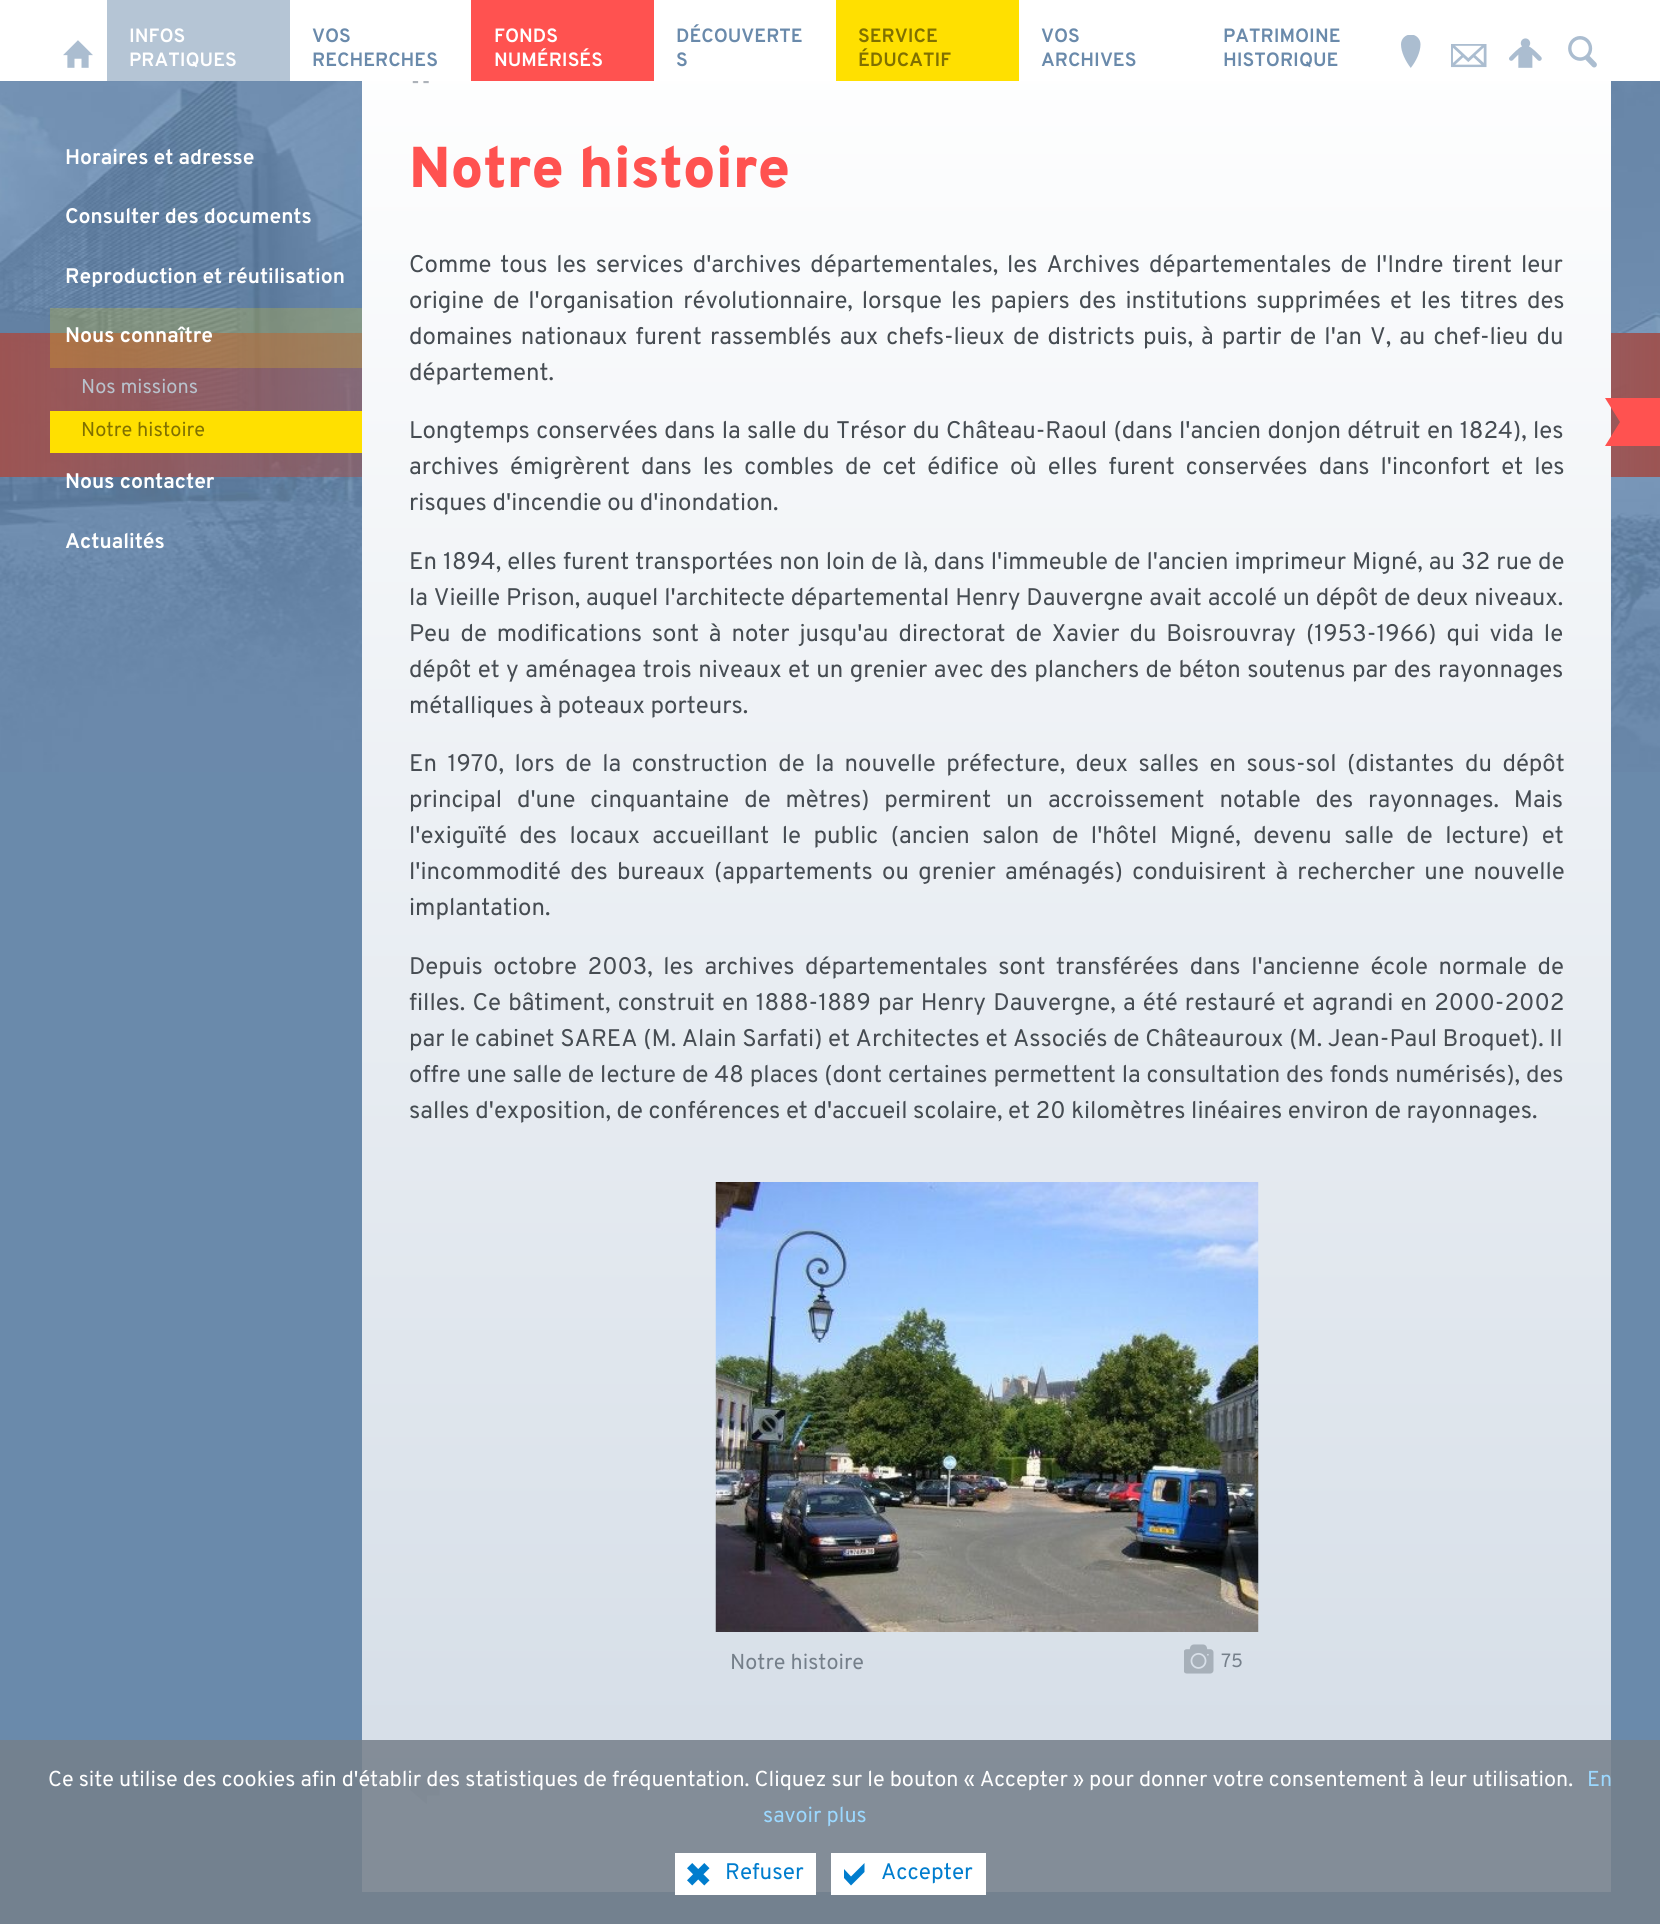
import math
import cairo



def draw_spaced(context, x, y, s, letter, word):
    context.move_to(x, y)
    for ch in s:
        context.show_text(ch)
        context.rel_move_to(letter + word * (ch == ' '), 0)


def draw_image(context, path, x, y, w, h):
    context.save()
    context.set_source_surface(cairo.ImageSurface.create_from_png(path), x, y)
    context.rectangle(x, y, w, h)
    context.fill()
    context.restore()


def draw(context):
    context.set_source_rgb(106 / 255, 138 / 255, 171 / 255)
    context.paint()
    context.set_source_rgb(115 / 255, 129 / 255, 143 / 255)
    context.rectangle(0, 1740, 1660, 184)
    context.fill()
    draw_image(context, "images/1.png", 0, 81, 1660, 691)
    context.set_source_rgb(1, 1, 1)
    context.rectangle(0, 0, 1660, 81)
    context.fill()
    draw_image(context, "images/2.png", 63, 40, 30, 28)
    context.set_source_rgb(181 / 255, 197 / 255, 213 / 255)
    context.rectangle(107, 0, 183, 81)
    context.fill()
    context.set_source_rgb(1, 82 / 255, 80 / 255)
    context.rectangle(471, 0, 183, 81)
    context.fill()
    context.set_source_rgb(1, 224 / 255, 0)
    context.rectangle(836, 0, 183, 81)
    context.fill()
    draw_image(context, "images/3.png", 1401, 35, 20, 33)
    draw_image(context, "images/4.png", 1451, 44, 36, 24)
    draw_image(context, "images/5.png", 1509, 38, 33, 30)
    draw_image(context, "images/6.png", 1568, 36, 29, 32)
    context.set_source_rgba(1, 224 / 255, 0, 0.2)
    context.rectangle(50, 308, 312, 60)
    context.fill()
    context.set_source_rgb(1, 224 / 255, 0)
    context.rectangle(50, 411, 312, 42)
    context.fill()
    gradient = cairo.LinearGradient(986, 20, 986, 1892)
    gradient.add_color_stop_rgba(0, 1, 1, 1, 1)
    gradient.add_color_stop_rgba(1, 211 / 255, 220 / 255, 230 / 255, 1)
    context.set_source(gradient)
    context.rectangle(362, 81, 1249, 1659)
    context.fill()
    gradient = cairo.LinearGradient(986, 20, 986, 1892)
    gradient.add_color_stop_rgba(0, 138 / 255, 146 / 255, 156 / 255, 1)
    gradient.add_color_stop_rgba(1, 131 / 255, 141 / 255, 152 / 255, 1)
    context.set_source(gradient)
    context.rectangle(362, 1740, 1249, 152)
    context.fill()
    draw_image(context, "images/7.png", 412, 81, 17, 3)
    draw_image(context, "images/8.png", 715, 1182, 544, 450)
    draw_image(context, "images/9.png", 1184, 1644, 30, 30)
    context.set_source_rgb(128 / 255, 138 / 255, 149 / 255)
    context.new_path()
    context.move_to(427, 1795.5)
    context.line_to(439.5, 1795.5)
    context.line_to(439.5, 1783.5)
    context.line_to(427, 1783.5)
    context.line_to(427, 1774.5)
    context.line_to(409.5, 1789.5)
    context.line_to(427, 1804.5)
    context.line_to(427, 1795.5)
    context.fill()
    context.set_source_rgb(1, 82 / 255, 80 / 255)
    context.new_path()
    context.move_to(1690, 446)
    context.line_to(1605, 446)
    context.line_to(1620, 422)
    context.line_to(1605, 398)
    context.line_to(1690, 398)
    context.close_path()
    context.fill()
    context.set_source_rgb(1, 1, 1)
    context.rectangle(675, 1853, 141, 42)
    context.fill()
    draw_image(context, "images/10.png", 687, 1863, 23, 23)
    context.rectangle(831, 1853, 155, 42)
    context.fill()
    context.set_source_rgb(0, 125 / 255, 206 / 255)
    context.new_path()
    context.move_to(864.5, 1872)
    context.line_to(851, 1885.5)
    context.line_to(844, 1878)
    context.line_to(844, 1869)
    context.line_to(851, 1876.5)
    context.line_to(864.5, 1863)
    context.close_path()
    context.fill()
    context.select_font_face("Overpass", cairo.FontSlant.NORMAL, cairo.FontWeight.BOLD)
    context.set_font_size(19.25)
    context.set_source_rgb(1, 1, 1)
    context.move_to(129, 42)
    context.show_text("INFOS")
    context.move_to(129, 66)
    context.show_text("PRATIQUES")
    context.set_source_rgb(106 / 255, 138 / 255, 171 / 255)
    context.move_to(312, 42)
    context.show_text("VOS")
    context.move_to(312, 66)
    context.show_text("RECHERCHES")
    context.set_source_rgb(1, 1, 1)
    context.move_to(494, 42)
    context.show_text("FONDS")
    context.move_to(494, 66)
    context.show_text("NUMÉRISÉS")
    context.set_source_rgb(106 / 255, 138 / 255, 171 / 255)
    context.move_to(676, 42)
    context.show_text("DÉCOUVERTE")
    context.move_to(676, 66)
    context.show_text("S")
    context.set_source_rgb(128 / 255, 112 / 255, 0)
    context.move_to(858, 42)
    context.show_text("SERVICE")
    context.move_to(858, 66)
    context.show_text("ÉDUCATIF")
    context.set_source_rgb(106 / 255, 138 / 255, 171 / 255)
    context.move_to(1041, 42)
    context.show_text("VOS")
    context.move_to(1041, 66)
    context.show_text("ARCHIVES")
    context.move_to(1223, 42)
    context.show_text("PATRIMOINE")
    context.move_to(1223, 66)
    context.show_text("HISTORIQUE")
    context.set_font_size(21.1)
    context.set_source_rgb(1, 1, 1)
    context.move_to(65, 164)
    context.show_text("Horaires et adresse")
    context.move_to(65, 223)
    context.show_text("Consulter des documents")
    context.move_to(65, 283)
    context.show_text("Reproduction et réutilisation")
    context.move_to(65, 342)
    context.show_text("Nous connaître")
    context.select_font_face("Overpass")
    context.set_font_size(20)
    context.set_source_rgb(184 / 255, 194 / 255, 204 / 255)
    context.move_to(81, 393)
    context.show_text("Nos missions")
    context.set_source_rgb(128 / 255, 112 / 255, 0)
    context.move_to(81, 436)
    context.show_text("Notre histoire")
    context.select_font_face("Overpass", cairo.FontSlant.NORMAL, cairo.FontWeight.BOLD)
    context.set_font_size(21.1)
    context.set_source_rgb(1, 1, 1)
    context.move_to(65, 488)
    context.show_text("Nous contacter")
    context.move_to(65, 548)
    context.show_text("Actualités")
    context.select_font_face("Overpass Black")
    context.set_font_size(57.5)
    context.set_source_rgb(1, 82 / 255, 80 / 255)
    context.move_to(409, 187)
    context.show_text("Notre histoire")
    context.select_font_face("Overpass")
    context.set_font_size(24)
    context.set_source_rgb(70 / 255, 76 / 255, 82 / 255)
    draw_spaced(context, 409, 272, "Comme tous les services d'archives départementales, les Archives départementales de l'Indre tirent leur", 0, 3.25)
    draw_spaced(context, 409, 308, "origine de l'organisation révolutionnaire, lorsque les papiers des institutions supprimées et les titres des", 0, 3.4)
    draw_spaced(context, 409, 344, "domaines nationaux furent rassemblés aux chefs-lieux de districts puis, à partir de l'an V, au chef-lieu du", 0, 2.5)
    context.move_to(409, 380)
    context.show_text("département.")
    draw_spaced(context, 409, 438, "Longtemps conservées dans la salle du Trésor du Château-Raoul (dans l'ancien donjon détruit en 1824), les", 0, 0.75)
    draw_spaced(context, 409, 474, "archives émigrèrent dans les combles de cet édifice où elles furent conservées dans l'inconfort et les", 0, 5.4)
    context.move_to(409, 510)
    context.show_text("risques d'incendie ou d'inondation.")
    draw_spaced(context, 409, 569, "En 1894, elles furent transportées non loin de là, dans l'immeuble de l'ancien imprimeur Migné, au 32 rue de", 0, 0.4)
    draw_spaced(context, 409, 605, "la Vieille Prison, auquel l'architecte départemental Henry Dauvergne avait accolé un dépôt de deux niveaux.", 0, 0.25)
    draw_spaced(context, 409, 641, "Peu de modifications sont à noter jusqu'au directorat de Xavier du Boisrouvray (1953-1966) qui vida le", 0, 4.25)
    draw_spaced(context, 409, 677, "dépôt et y aménagea trois niveaux et un grenier avec des planchers de béton soutenus par des rayonnages", 0, 0.8)
    context.move_to(409, 713)
    context.show_text("métalliques à poteaux porteurs.")
    draw_spaced(context, 409, 771, "En 1970, lors de la construction de la nouvelle préfecture, deux salles en sous-sol (distantes du dépôt", 0, 4.9)
    draw_spaced(context, 409, 807, "principal d'une cinquantaine de mètres) permirent un accroissement notable des rayonnages. Mais", 0, 9.25)
    draw_spaced(context, 409, 843, "l'exiguïté des locaux accueillant le public (ancien salon de l'hôtel Migné, devenu salle de lecture) et", 0, 6.9)
    draw_spaced(context, 409, 879, "l'incommodité des bureaux (appartements ou grenier aménagés) conduisirent à rechercher une nouvelle", 0, 3.6)
    context.move_to(409, 915)
    context.show_text("implantation.")
    draw_spaced(context, 409, 974, "Depuis octobre 2003, les archives départementales sont transférées dans l'ancienne école normale de", 0, 5)
    draw_spaced(context, 409, 1010, "filles. Ce bâtiment, construit en 1888-1889 par Henry Dauvergne, a été restauré et agrandi en 2000-2002", 0, 1.6)
    context.move_to(409, 1046)
    context.show_text("par le cabinet SAREA (M. Alain Sarfati) et Architectes et Associés de Châteauroux (M. Jean-Paul Broquet). Il")
    draw_spaced(context, 409, 1082, "offre une salle de lecture de 48 places (dont certaines permettent la consultation des fonds numérisés), des", 0, 0.3)
    context.move_to(409, 1118)
    context.show_text("salles d'exposition, de conférences et d'accueil scolaire, et 20 kilomètres linéaires environ de rayonnages.")
    context.set_font_size(21.6)
    context.set_source_rgb(117 / 255, 127 / 255, 138 / 255)
    context.move_to(730, 1669)
    context.show_text("Notre histoire")
    context.set_font_size(19.25)
    context.move_to(1221, 1667)
    context.show_text("75")
    context.set_font_size(21.6)
    context.set_source_rgb(1, 1, 1)
    context.move_to(48, 1786)
    context.show_text("Ce site utilise des cookies afin d'établir des statistiques de fréquentation. Cliquez sur le bouton « Accepter » pour donner votre consentement à leur utilisation.")
    context.set_source_rgb(155 / 255, 216 / 255, 1)
    context.move_to(1587, 1786)
    context.show_text("En")
    context.move_to(763, 1822)
    context.show_text("savoir plus")
    context.set_font_size(22.5)
    context.set_source_rgb(0, 125 / 255, 206 / 255)
    context.move_to(725, 1879)
    context.show_text("Refuser")
    context.move_to(881, 1879)
    context.show_text("Accepter")


surface = cairo.ImageSurface(cairo.Format.RGB24, 1660, 1924)
context = cairo.Context(surface)
options = cairo.FontOptions()
options.set_hint_metrics(cairo.HintMetrics.OFF)
options.set_hint_style(cairo.HintStyle.NONE)
context.set_font_options(options)
context.set_miter_limit(4)
draw(context)
surface.write_to_png("out.png")
